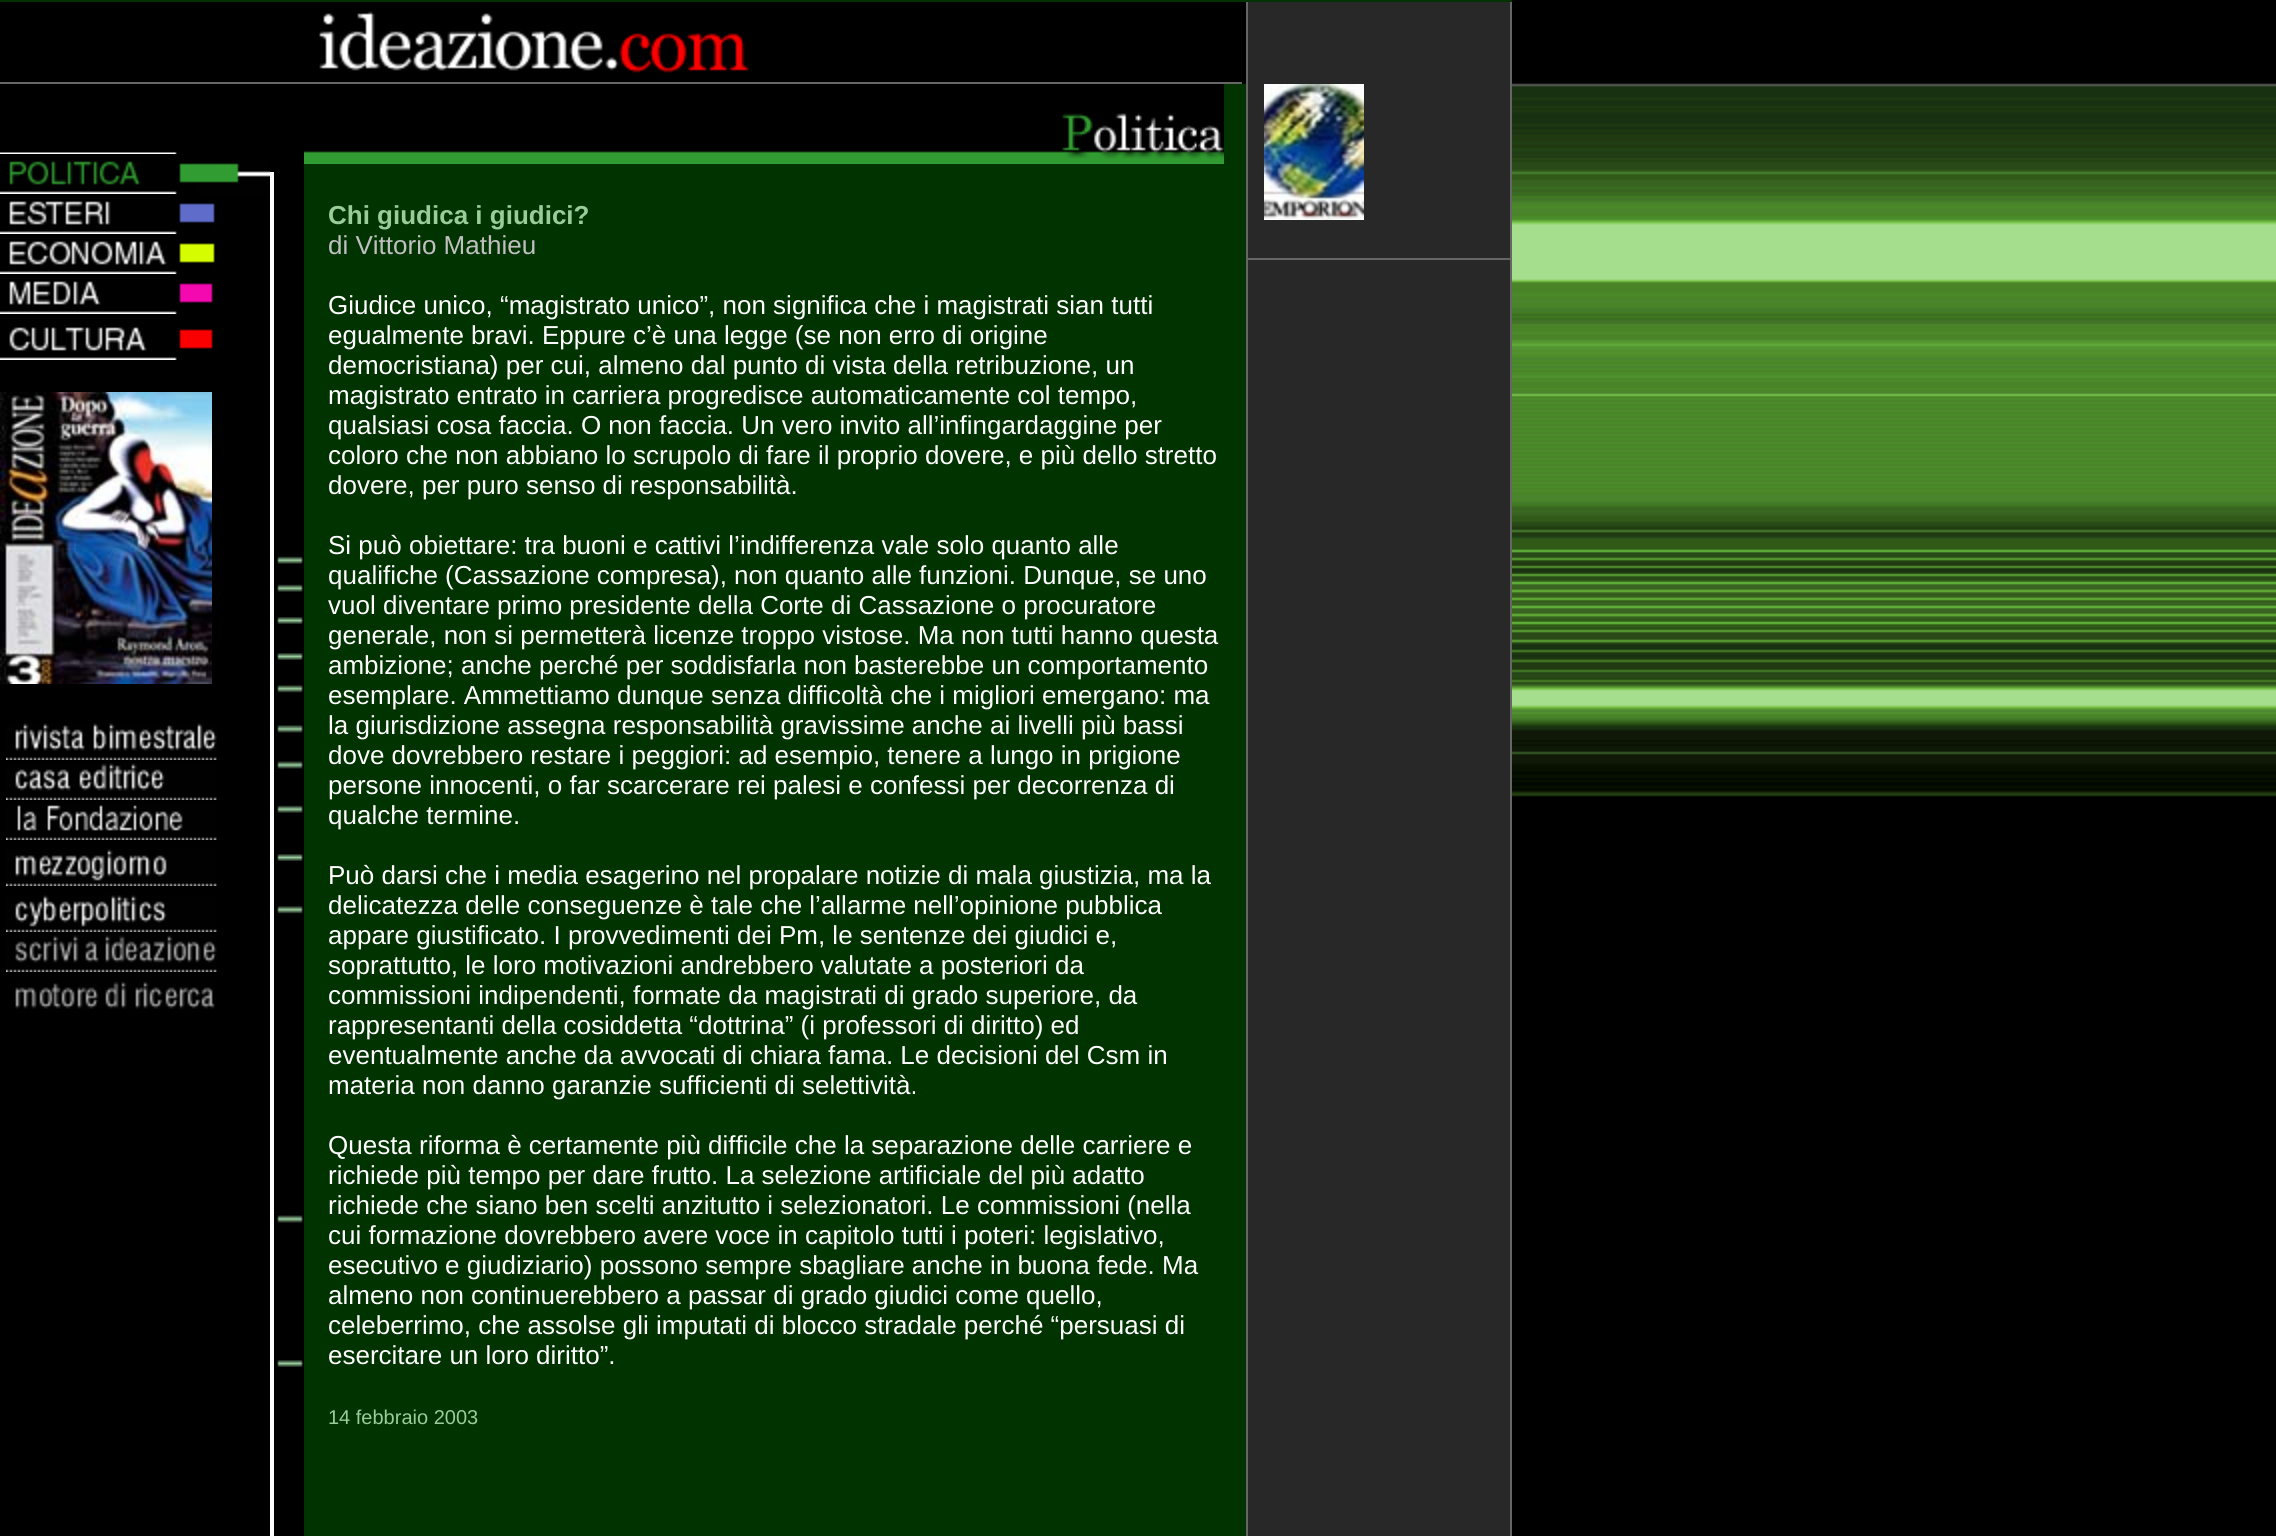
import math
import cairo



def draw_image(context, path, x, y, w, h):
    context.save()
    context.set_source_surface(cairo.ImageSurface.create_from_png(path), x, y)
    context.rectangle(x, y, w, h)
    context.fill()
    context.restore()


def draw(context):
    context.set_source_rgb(0, 0, 0)
    context.paint()
    draw_image(context, "images/1.png", 1512, 83, 764, 714)
    context.set_source_rgb(0, 51 / 255, 0)
    context.rectangle(0, 0, 1512, 1536)
    context.fill()
    context.set_source_rgb(0, 0, 0)
    context.rectangle(0, 2, 1246, 80)
    context.fill()
    draw_image(context, "images/2.png", 319, 11, 430, 62)
    context.set_source_rgb(102 / 255, 102 / 255, 102 / 255)
    context.rectangle(1246, 2, 2, 1534)
    context.fill()
    context.set_source_rgb(40 / 255, 40 / 255, 40 / 255)
    context.rectangle(1248, 2, 262, 1534)
    context.fill()
    context.set_source_rgb(102 / 255, 102 / 255, 102 / 255)
    context.rectangle(1510, 2, 2, 1534)
    context.fill()
    context.set_source_rgb(0, 0, 0)
    context.rectangle(1242, 82, 4, 2)
    context.fill()
    context.set_source_rgb(102 / 255, 102 / 255, 102 / 255)
    context.rectangle(0, 82, 1242, 2)
    context.fill()
    context.set_source_rgb(0, 0, 0)
    context.rectangle(0, 84, 270, 1452)
    context.fill()
    draw_image(context, "images/3.png", 0, 152, 177, 2)
    draw_image(context, "images/4.png", 0, 161, 270, 33)
    draw_image(context, "images/5.png", 0, 201, 215, 33)
    draw_image(context, "images/6.png", 0, 241, 215, 33)
    draw_image(context, "images/7.png", 0, 281, 213, 33)
    draw_image(context, "images/8.png", 0, 327, 213, 33)
    draw_image(context, "images/9.png", 0, 392, 212, 292)
    draw_image(context, "images/10.png", 6, 723, 211, 37)
    draw_image(context, "images/11.png", 6, 763, 211, 37)
    draw_image(context, "images/12.png", 6, 805, 211, 35)
    draw_image(context, "images/13.png", 6, 849, 211, 37)
    draw_image(context, "images/14.png", 6, 895, 211, 37)
    draw_image(context, "images/15.png", 6, 935, 211, 37)
    draw_image(context, "images/16.png", 15, 981, 200, 28)
    context.set_source_rgb(1, 1, 1)
    context.rectangle(270, 172, 4, 1364)
    context.fill()
    context.set_source_rgb(0, 0, 0)
    context.rectangle(270, 84, 4, 88)
    context.fill()
    context.rectangle(274, 84, 30, 1452)
    context.fill()
    draw_image(context, "images/17.png", 277, 556, 26, 811)
    draw_image(context, "images/18.png", 1264, 84, 100, 136)
    context.set_source_rgb(102 / 255, 102 / 255, 102 / 255)
    context.rectangle(1248, 258, 262, 2)
    context.fill()
    draw_image(context, "images/19.png", 304, 84, 920, 80)
    context.select_font_face("Liberation Sans", cairo.FontSlant.NORMAL, cairo.FontWeight.BOLD)
    context.set_font_size(26)
    context.set_source_rgb(153 / 255, 204 / 255, 153 / 255)
    context.move_to(328, 224)
    context.show_text("Chi giudica i giudici?")
    context.select_font_face("Liberation Sans")
    context.set_source_rgb(192 / 255, 192 / 255, 192 / 255)
    context.move_to(328, 254)
    context.show_text("di Vittorio Mathieu")
    context.set_source_rgb(1, 1, 1)
    context.move_to(328, 314)
    context.show_text("Giudice unico, “magistrato unico”, non significa che i magistrati sian tutti")
    context.move_to(328, 344)
    context.show_text("egualmente bravi. Eppure c’è una legge (se non erro di origine")
    context.move_to(328, 374)
    context.show_text("democristiana) per cui, almeno dal punto di vista della retribuzione, un")
    context.move_to(328, 404)
    context.show_text("magistrato entrato in carriera progredisce automaticamente col tempo,")
    context.move_to(328, 434)
    context.show_text("qualsiasi cosa faccia. O non faccia. Un vero invito all’infingardaggine per")
    context.move_to(328, 464)
    context.show_text("coloro che non abbiano lo scrupolo di fare il proprio dovere, e più dello stretto")
    context.move_to(328, 494)
    context.show_text("dovere, per puro senso di responsabilità.")
    context.move_to(328, 554)
    context.show_text("Si può obiettare: tra buoni e cattivi l’indifferenza vale solo quanto alle")
    context.move_to(328, 584)
    context.show_text("qualifiche (Cassazione compresa), non quanto alle funzioni. Dunque, se uno")
    context.move_to(328, 614)
    context.show_text("vuol diventare primo presidente della Corte di Cassazione o procuratore")
    context.move_to(328, 644)
    context.show_text("generale, non si permetterà licenze troppo vistose. Ma non tutti hanno questa")
    context.move_to(328, 674)
    context.show_text("ambizione; anche perché per soddisfarla non basterebbe un comportamento")
    context.move_to(328, 704)
    context.show_text("esemplare. Ammettiamo dunque senza difficoltà che i migliori emergano: ma")
    context.move_to(328, 734)
    context.show_text("la giurisdizione assegna responsabilità gravissime anche ai livelli più bassi")
    context.move_to(328, 764)
    context.show_text("dove dovrebbero restare i peggiori: ad esempio, tenere a lungo in prigione")
    context.move_to(328, 794)
    context.show_text("persone innocenti, o far scarcerare rei palesi e confessi per decorrenza di")
    context.move_to(328, 824)
    context.show_text("qualche termine.")
    context.move_to(328, 884)
    context.show_text("Può darsi che i media esagerino nel propalare notizie di mala giustizia, ma la")
    context.move_to(328, 914)
    context.show_text("delicatezza delle conseguenze è tale che l’allarme nell’opinione pubblica")
    context.move_to(328, 944)
    context.show_text("appare giustificato. I provvedimenti dei Pm, le sentenze dei giudici e,")
    context.move_to(328, 974)
    context.show_text("soprattutto, le loro motivazioni andrebbero valutate a posteriori da")
    context.move_to(328, 1004)
    context.show_text("commissioni indipendenti, formate da magistrati di grado superiore, da")
    context.move_to(328, 1034)
    context.show_text("rappresentanti della cosiddetta “dottrina” (i professori di diritto) ed")
    context.move_to(328, 1064)
    context.show_text("eventualmente anche da avvocati di chiara fama. Le decisioni del Csm in")
    context.move_to(328, 1094)
    context.show_text("materia non danno garanzie sufficienti di selettività.")
    context.move_to(328, 1154)
    context.show_text("Questa riforma è certamente più difficile che la separazione delle carriere e")
    context.move_to(328, 1184)
    context.show_text("richiede più tempo per dare frutto. La selezione artificiale del più adatto")
    context.move_to(328, 1214)
    context.show_text("richiede che siano ben scelti anzitutto i selezionatori. Le commissioni (nella")
    context.move_to(328, 1244)
    context.show_text("cui formazione dovrebbero avere voce in capitolo tutti i poteri: legislativo,")
    context.move_to(328, 1274)
    context.show_text("esecutivo e giudiziario) possono sempre sbagliare anche in buona fede. Ma")
    context.move_to(328, 1304)
    context.show_text("almeno non continuerebbero a passar di grado giudici come quello,")
    context.move_to(328, 1334)
    context.show_text("celeberrimo, che assolse gli imputati di blocco stradale perché “persuasi di")
    context.move_to(328, 1364)
    context.show_text("esercitare un loro diritto”.")
    context.set_font_size(20)
    context.set_source_rgb(153 / 255, 204 / 255, 153 / 255)
    context.move_to(328, 1424)
    context.show_text("14 febbraio 2003")


surface = cairo.ImageSurface(cairo.Format.RGB24, 2276, 1536)
context = cairo.Context(surface)
options = cairo.FontOptions()
options.set_hint_metrics(cairo.HintMetrics.OFF)
options.set_hint_style(cairo.HintStyle.NONE)
context.set_font_options(options)
context.set_miter_limit(4)
draw(context)
surface.write_to_png("out.png")
